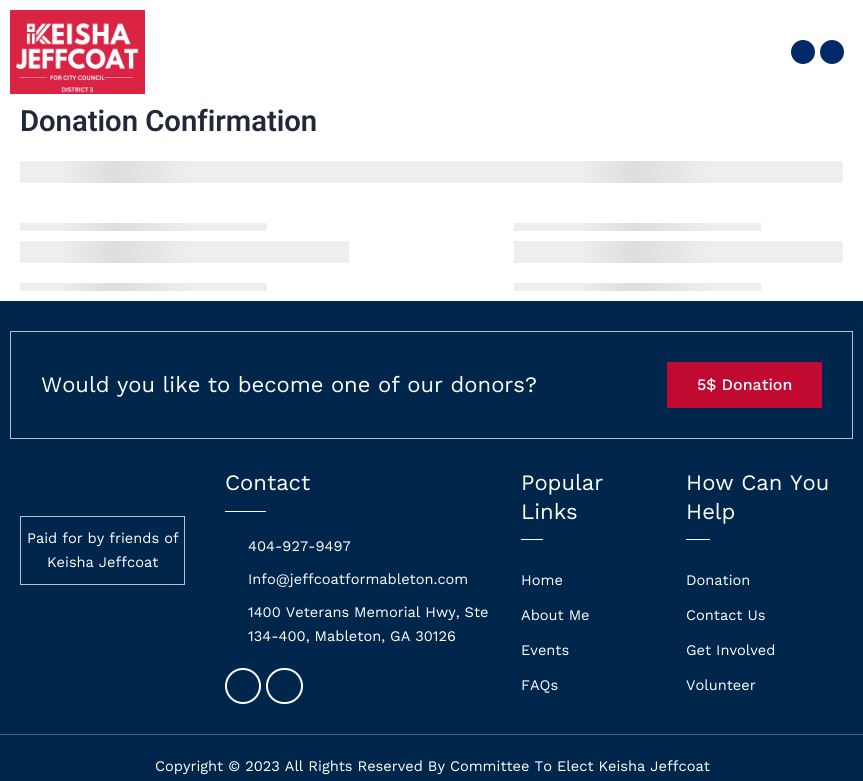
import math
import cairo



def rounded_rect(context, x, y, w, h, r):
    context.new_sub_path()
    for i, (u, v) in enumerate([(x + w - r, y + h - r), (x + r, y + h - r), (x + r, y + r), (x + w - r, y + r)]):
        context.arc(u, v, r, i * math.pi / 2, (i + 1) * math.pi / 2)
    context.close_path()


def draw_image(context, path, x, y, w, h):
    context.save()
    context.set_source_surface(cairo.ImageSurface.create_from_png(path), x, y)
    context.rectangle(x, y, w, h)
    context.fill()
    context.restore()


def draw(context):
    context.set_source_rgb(1, 1, 1)
    context.paint()
    draw_image(context, "images/1.png", 10, 10, 135, 84)
    context.set_source_rgb(1 / 255, 40 / 255, 105 / 255)
    context.arc(803, 52, 12, 0, 2 * math.pi)
    context.fill()
    context.arc(832, 52, 12, 0, 2 * math.pi)
    context.fill()
    gradient = cairo.LinearGradient(20, 231, 540, 231)
    gradient.add_color_stop_rgba(0.08, 238 / 255, 238 / 255, 238 / 255, 1)
    gradient.add_color_stop_rgba(0.18, 221 / 255, 221 / 255, 221 / 255, 1)
    gradient.add_color_stop_rgba(0.33, 238 / 255, 238 / 255, 238 / 255, 1)
    context.set_source(gradient)
    context.rectangle(20, 161, 520, 130)
    context.fill()
    gradient = cairo.LinearGradient(540, 231, 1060, 231)
    gradient.add_color_stop_rgba(0.08, 238 / 255, 238 / 255, 238 / 255, 1)
    gradient.add_color_stop_rgba(0.18, 221 / 255, 221 / 255, 221 / 255, 1)
    gradient.add_color_stop_rgba(0.33, 238 / 255, 238 / 255, 238 / 255, 1)
    context.set_source(gradient)
    context.rectangle(540, 161, 303, 130)
    context.fill()
    context.set_source_rgb(1, 1, 1)
    context.rectangle(20, 183, 823, 40)
    context.fill()
    context.rectangle(267, 223, 247, 8)
    context.fill()
    context.rectangle(761, 223, 82, 8)
    context.fill()
    context.rectangle(20, 231, 823, 10)
    context.fill()
    context.rectangle(349, 241, 165, 22)
    context.fill()
    context.rectangle(20, 263, 823, 20)
    context.fill()
    context.rectangle(267, 283, 247, 8)
    context.fill()
    context.rectangle(761, 283, 82, 8)
    context.fill()
    context.set_source_rgb(0, 38 / 255, 75 / 255)
    context.rectangle(0, 301, 863, 433)
    context.fill()
    context.rectangle(10.5, 331.5, 842, 107)
    context.set_source_rgb(181 / 255, 192 / 255, 203 / 255)
    context.set_line_width(1)
    context.stroke()
    context.set_source_rgb(192 / 255, 10 / 255, 50 / 255)
    context.rectangle(667, 362, 155, 46)
    context.fill()
    context.rectangle(20.5, 516.5, 164, 68)
    context.set_source_rgb(186 / 255, 196 / 255, 206 / 255)
    context.stroke()
    context.set_source_rgb(1, 1, 1)
    context.rectangle(225, 511, 41, 1)
    context.fill()
    context.arc(243, 686, 17, 0, 2 * math.pi)
    context.set_line_width(2)
    context.stroke()
    rounded_rect(context, 267, 669, 35, 34, 17)
    context.stroke()
    context.rectangle(521, 539, 22, 1)
    context.fill()
    context.rectangle(686, 539, 24, 1)
    context.fill()
    context.set_source_rgb(0, 38 / 255, 75 / 255)
    context.rectangle(0, 735, 863, 46)
    context.fill()
    context.set_source_rgb(69 / 255, 97 / 255, 124 / 255)
    context.rectangle(0, 734, 863, 1)
    context.fill()
    context.select_font_face("Roboto SemiBold")
    context.set_font_size(29.25)
    context.set_source_rgb(30 / 255, 41 / 255, 59 / 255)
    context.move_to(20, 131)
    context.show_text("Donation Confirmation")
    context.select_font_face("Work Sans")
    context.set_font_size(22)
    context.set_source_rgb(1, 1, 1)
    context.move_to(41, 392)
    context.show_text("Would you like to become one of our donors?")
    context.select_font_face("Work Sans Medium")
    context.set_font_size(16)
    context.move_to(697, 390)
    context.show_text("5$ Donation")
    context.select_font_face("Work Sans")
    context.set_font_size(14.6)
    context.move_to(27, 543)
    context.show_text("Paid for by friends of")
    context.move_to(47, 567)
    context.show_text("Keisha Jeffcoat")
    context.set_font_size(22)
    context.move_to(225, 490)
    context.show_text("Contact")
    context.set_font_size(14.6)
    context.move_to(248, 551)
    context.show_text("404-927-9497")
    context.move_to(248, 584)
    context.show_text("Info@jeffcoatformableton.com")
    context.move_to(248, 617)
    context.show_text("1400 Veterans Memorial Hwy, Ste")
    context.move_to(248, 641)
    context.show_text("134-400, Mableton, GA 30126")
    context.set_font_size(22)
    context.move_to(521, 490)
    context.show_text("Popular")
    context.move_to(521, 519)
    context.show_text("Links")
    context.set_font_size(14.6)
    context.move_to(521, 585)
    context.show_text("Home")
    context.move_to(521, 620)
    context.show_text("About Me")
    context.move_to(521, 655)
    context.show_text("Events")
    context.move_to(521, 690)
    context.show_text("FAQs")
    context.set_font_size(22)
    context.move_to(686, 490)
    context.show_text("How Can You")
    context.move_to(686, 519)
    context.show_text("Help")
    context.set_font_size(14.6)
    context.move_to(686, 585)
    context.show_text("Donation")
    context.move_to(686, 620)
    context.show_text("Contact Us")
    context.move_to(686, 655)
    context.show_text("Get Involved")
    context.move_to(686, 690)
    context.show_text("Volunteer")
    context.move_to(155, 771)
    context.show_text("Copyright © 2023 All Rights Reserved By Committee To Elect Keisha Jeffcoat")


surface = cairo.ImageSurface(cairo.Format.RGB24, 863, 781)
context = cairo.Context(surface)
options = cairo.FontOptions()
options.set_hint_metrics(cairo.HintMetrics.OFF)
options.set_hint_style(cairo.HintStyle.NONE)
context.set_font_options(options)
context.set_miter_limit(4)
draw(context)
surface.write_to_png("out.png")
